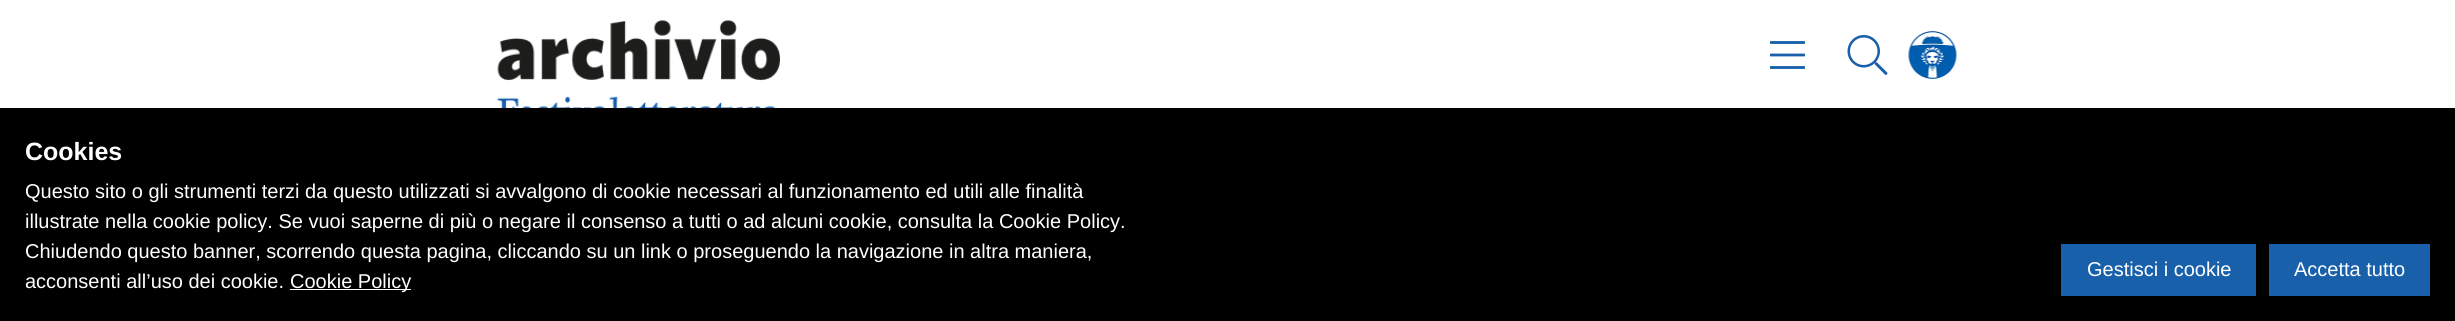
import math
import cairo



def draw_image(context, path, x, y, w, h):
    context.save()
    context.set_source_surface(cairo.ImageSurface.create_from_png(path), x, y)
    context.rectangle(x, y, w, h)
    context.fill()
    context.restore()


def draw(context):
    context.set_source_rgb(1, 1, 1)
    context.paint()
    draw_image(context, "images/1.png", 497, 20, 283, 88)
    draw_image(context, "images/2.png", 1770, 41, 35, 28)
    draw_image(context, "images/3.png", 1847, 35, 41, 40)
    draw_image(context, "images/4.png", 1908, 31, 49, 48)
    context.set_source_rgb(0, 0, 0)
    context.rectangle(0, 108, 2455, 213)
    context.fill()
    context.set_source_rgb(1, 1, 1)
    context.rectangle(290, 289, 121, 1)
    context.fill()
    context.set_source_rgb(25 / 255, 96 / 255, 171 / 255)
    context.rectangle(2061, 244, 195, 52)
    context.fill()
    context.rectangle(2269, 244, 161, 52)
    context.fill()
    context.select_font_face("Liberation Sans", cairo.FontSlant.NORMAL, cairo.FontWeight.BOLD)
    context.set_font_size(25)
    context.set_source_rgb(1, 1, 1)
    context.move_to(25, 160)
    context.show_text("Cookies")
    context.select_font_face("Liberation Sans")
    context.set_font_size(20)
    context.move_to(25, 198)
    context.show_text("Questo sito o gli strumenti terzi da questo utilizzati si avvalgono di cookie necessari al funzionamento ed utili alle finalità")
    context.move_to(25, 228)
    context.show_text("illustrate nella cookie policy. Se vuoi saperne di più o negare il consenso a tutti o ad alcuni cookie, consulta la Cookie Policy.")
    context.move_to(25, 258)
    context.show_text("Chiudendo questo banner, scorrendo questa pagina, cliccando su un link o proseguendo la navigazione in altra maniera,")
    context.move_to(25, 288)
    context.show_text("acconsenti all’uso dei cookie.")
    context.move_to(290, 288)
    context.show_text("Cookie Policy")
    context.move_to(2087, 276)
    context.show_text("Gestisci i cookie")
    context.move_to(2294, 276)
    context.show_text("Accetta tutto")


surface = cairo.ImageSurface(cairo.Format.RGB24, 2455, 321)
context = cairo.Context(surface)
options = cairo.FontOptions()
options.set_hint_metrics(cairo.HintMetrics.OFF)
options.set_hint_style(cairo.HintStyle.NONE)
context.set_font_options(options)
context.set_miter_limit(4)
draw(context)
surface.write_to_png("out.png")
